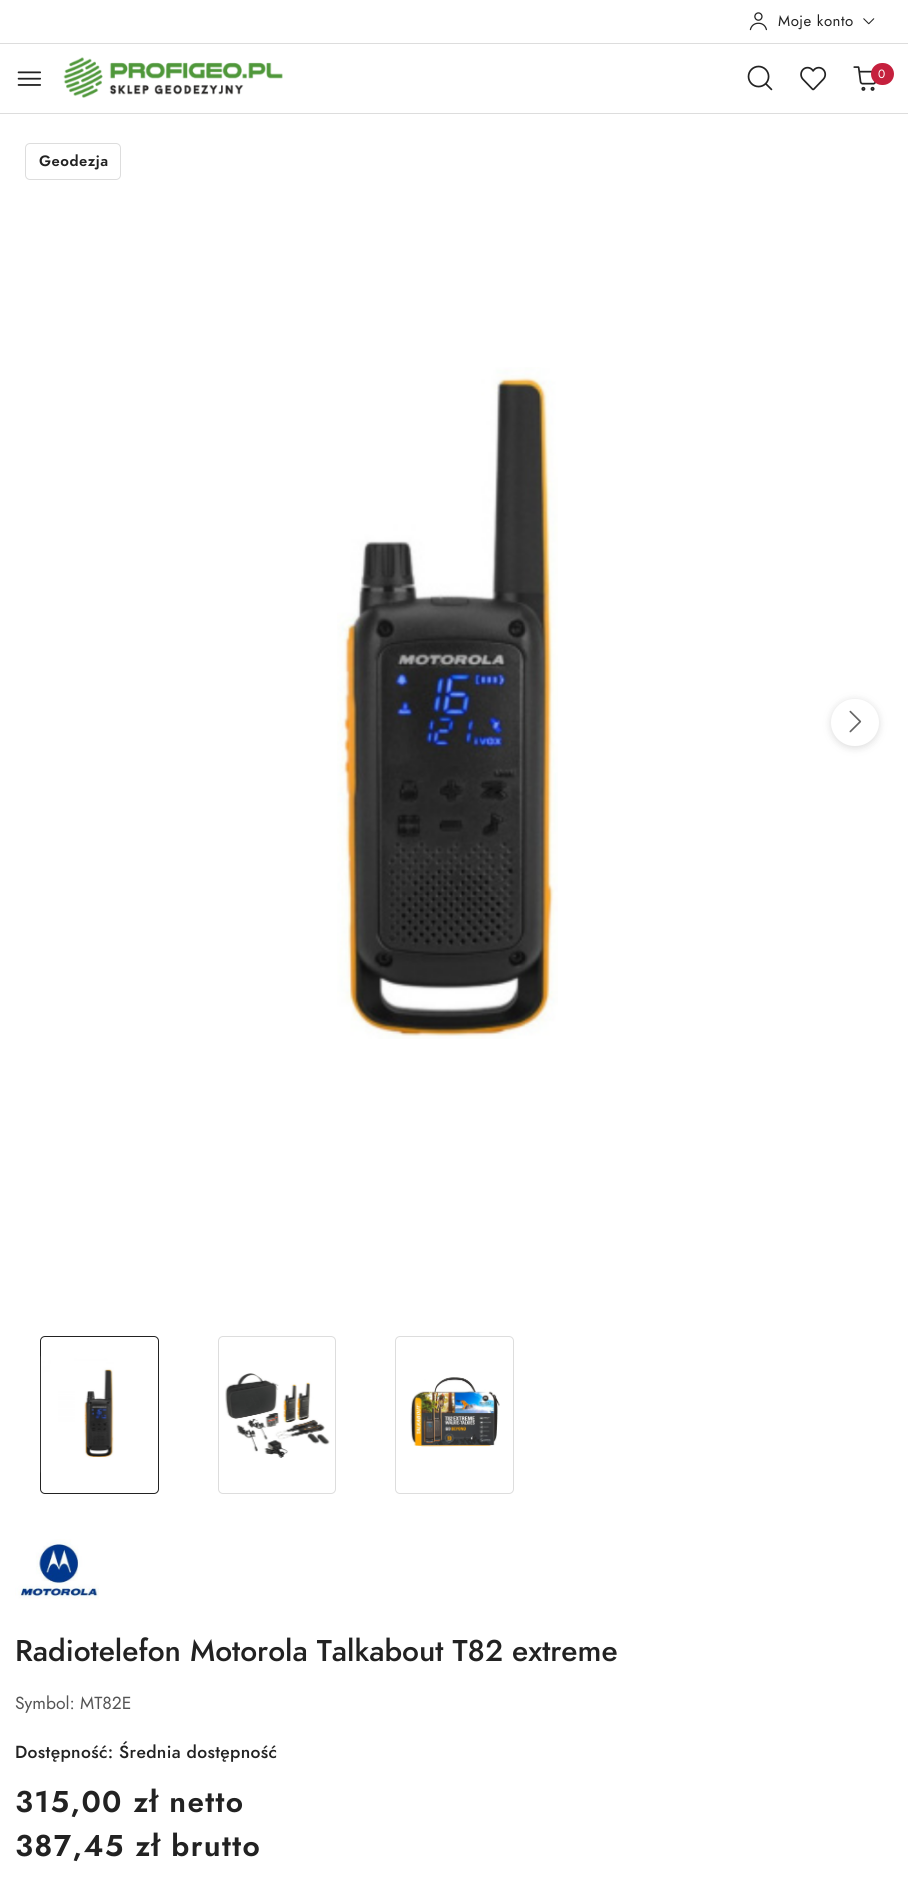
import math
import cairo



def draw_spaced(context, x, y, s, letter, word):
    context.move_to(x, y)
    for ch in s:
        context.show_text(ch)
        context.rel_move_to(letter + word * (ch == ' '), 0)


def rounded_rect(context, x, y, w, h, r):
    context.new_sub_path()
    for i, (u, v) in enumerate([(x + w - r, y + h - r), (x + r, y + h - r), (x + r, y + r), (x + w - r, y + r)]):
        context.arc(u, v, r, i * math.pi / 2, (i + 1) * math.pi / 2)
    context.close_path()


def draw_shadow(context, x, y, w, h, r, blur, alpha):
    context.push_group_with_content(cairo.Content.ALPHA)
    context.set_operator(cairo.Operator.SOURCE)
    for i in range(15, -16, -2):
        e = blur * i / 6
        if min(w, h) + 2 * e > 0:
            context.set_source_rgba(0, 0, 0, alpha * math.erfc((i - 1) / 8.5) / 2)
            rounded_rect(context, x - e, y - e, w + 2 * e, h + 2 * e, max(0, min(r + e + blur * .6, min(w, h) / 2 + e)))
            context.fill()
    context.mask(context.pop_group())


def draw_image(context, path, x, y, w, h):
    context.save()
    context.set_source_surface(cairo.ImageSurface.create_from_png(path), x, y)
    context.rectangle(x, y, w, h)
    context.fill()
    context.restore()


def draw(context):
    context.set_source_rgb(1, 1, 1)
    context.paint()
    draw_image(context, "images/1.png", 749, 12, 18, 19)
    draw_image(context, "images/2.png", 863, 18, 12, 7)
    context.set_source_rgb(221 / 255, 221 / 255, 221 / 255)
    context.rectangle(0, 43, 908, 1)
    context.fill()
    draw_image(context, "images/3.png", 17, 71, 24, 15)
    draw_image(context, "images/4.png", 63, 57, 220, 41)
    draw_image(context, "images/5.png", 747, 65, 26, 26)
    draw_image(context, "images/6.png", 800, 66, 27, 25)
    draw_image(context, "images/7.png", 853, 66, 23, 25)
    context.set_source_rgb(197 / 255, 32 / 255, 61 / 255)
    rounded_rect(context, 871, 63, 23, 22, 11)
    context.fill()
    context.set_source_rgb(221 / 255, 221 / 255, 221 / 255)
    context.rectangle(0, 113, 908, 1)
    context.fill()
    rounded_rect(context, 25.5, 143.5, 95, 36, 4.5)
    context.set_line_width(1)
    context.stroke()
    draw_image(context, "images/8.png", 337, 367, 221, 672)
    context.set_source_rgb(77 / 255, 77 / 255, 77 / 255)
    draw_shadow(context, 831, 700, 48, 48, 24, 4, 0.2)
    context.set_source_rgb(1, 1, 1)
    rounded_rect(context, 831, 699, 48, 47, 23.5)
    context.fill()
    draw_image(context, "images/9.png", 849, 710, 13, 23)
    rounded_rect(context, 40.5, 1336.5, 118, 157, 4.5)
    context.set_source_rgb(34 / 255, 34 / 255, 34 / 255)
    context.stroke()
    draw_image(context, "images/10.png", 40, 1356, 74, 117)
    rounded_rect(context, 218.5, 1336.5, 117, 157, 4.5)
    context.set_source_rgb(221 / 255, 221 / 255, 221 / 255)
    context.stroke()
    draw_image(context, "images/11.png", 225, 1373, 105, 85)
    rounded_rect(context, 395.5, 1336.5, 118, 157, 4.5)
    context.stroke()
    draw_image(context, "images/12.png", 410, 1377, 90, 70)
    draw_image(context, "images/13.png", 15, 1539, 84, 61)
    context.select_font_face("Jost")
    context.set_font_size(15)
    context.set_source_rgb(34 / 255, 34 / 255, 34 / 255)
    draw_spaced(context, 778, 26, "Moje konto", 0.5, 0)
    context.set_font_size(12)
    context.set_source_rgb(1, 1, 1)
    context.move_to(878, 78)
    context.show_text("0")
    context.select_font_face("Jost SemiBold")
    context.set_font_size(15)
    context.set_source_rgb(34 / 255, 34 / 255, 34 / 255)
    draw_spaced(context, 39, 166, "Geodezja", 0.5, 0)
    context.select_font_face("Jost Medium")
    context.set_font_size(30)
    context.move_to(15, 1661)
    context.show_text("Radiotelefon Motorola Talkabout T82 extreme")
    context.select_font_face("Jost")
    context.set_font_size(17.5)
    context.set_source_rgb(85 / 255, 85 / 255, 85 / 255)
    context.move_to(15, 1709)
    context.show_text("Symbol: MT82E")
    context.select_font_face("Jost Medium")
    context.set_source_rgb(34 / 255, 34 / 255, 34 / 255)
    draw_spaced(context, 15, 1758, "Dostępność: Średnia dostępność", 0.35, 0)
    context.select_font_face("Jost SemiBold")
    context.set_font_size(30)
    draw_spaced(context, 15, 1812, "315,00 zł netto", 1.4, 0)
    draw_spaced(context, 15, 1856, "387,45 zł brutto", 1.4, 0)


surface = cairo.ImageSurface(cairo.Format.RGB24, 908, 1888)
context = cairo.Context(surface)
options = cairo.FontOptions()
options.set_hint_metrics(cairo.HintMetrics.OFF)
options.set_hint_style(cairo.HintStyle.NONE)
context.set_font_options(options)
context.set_miter_limit(4)
draw(context)
surface.write_to_png("out.png")
